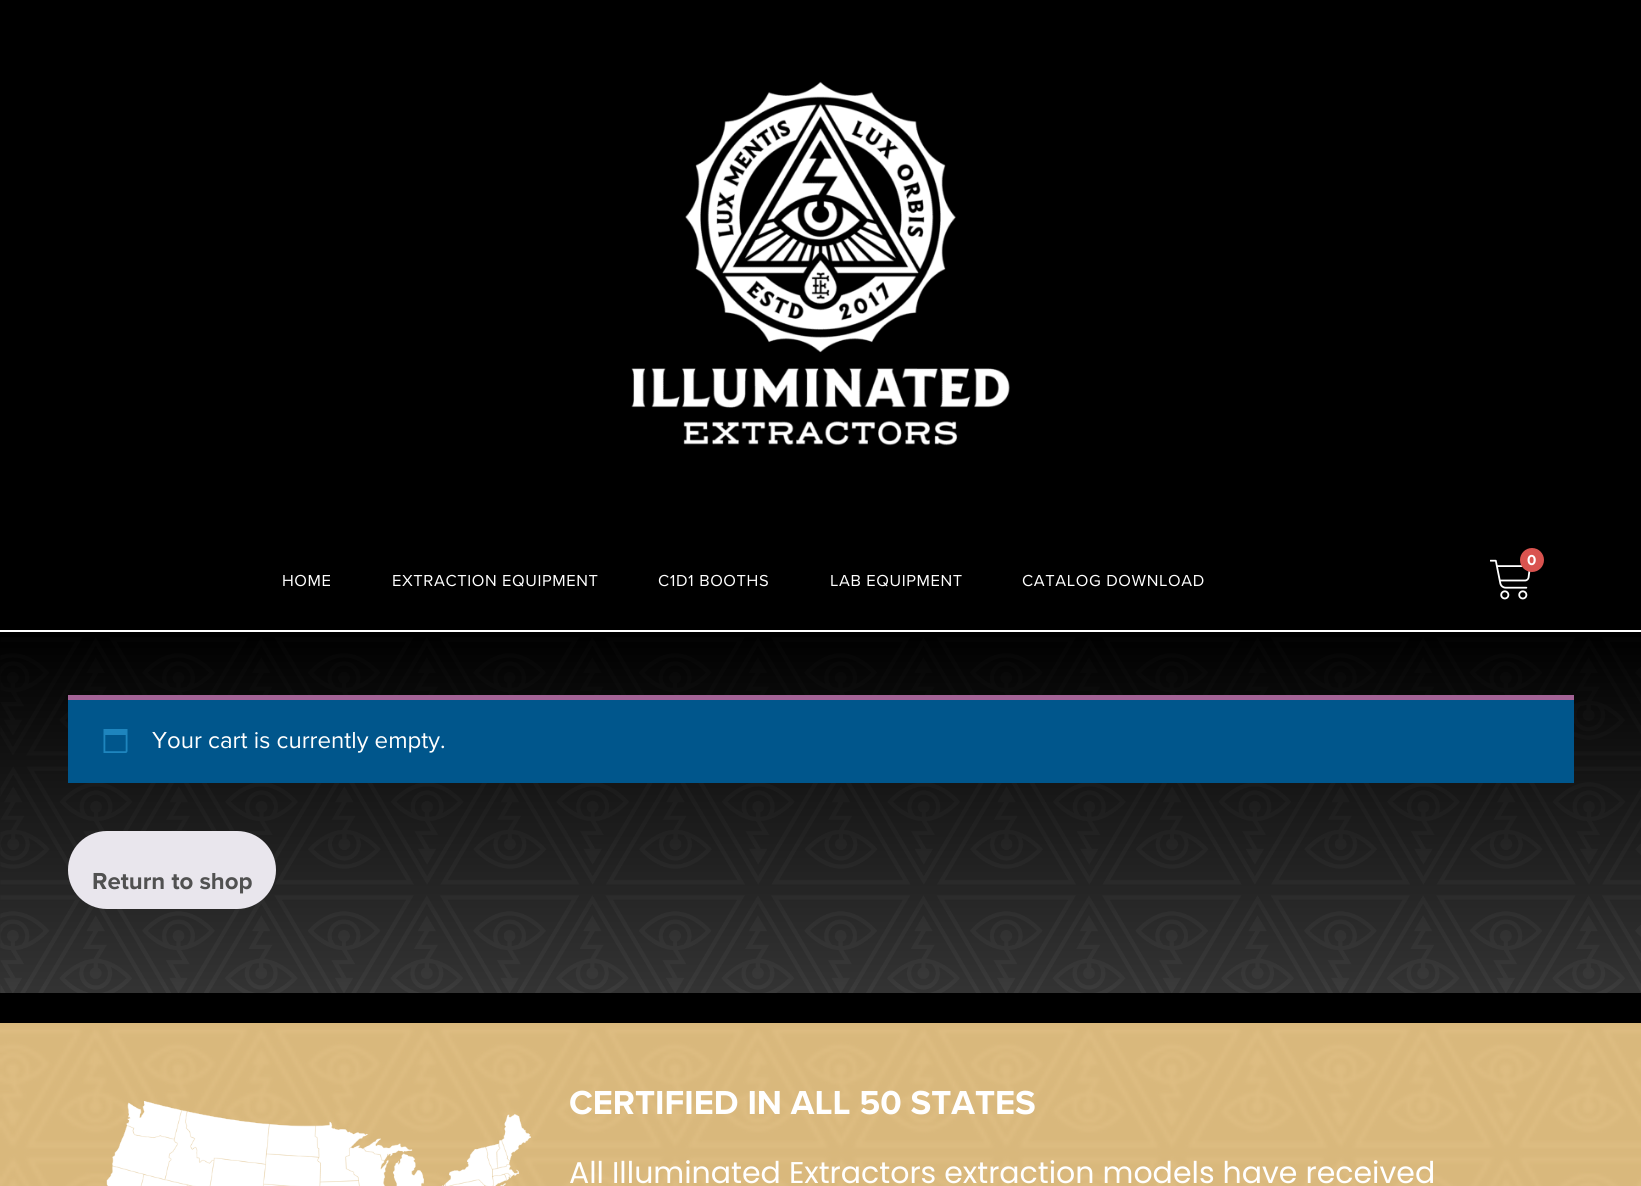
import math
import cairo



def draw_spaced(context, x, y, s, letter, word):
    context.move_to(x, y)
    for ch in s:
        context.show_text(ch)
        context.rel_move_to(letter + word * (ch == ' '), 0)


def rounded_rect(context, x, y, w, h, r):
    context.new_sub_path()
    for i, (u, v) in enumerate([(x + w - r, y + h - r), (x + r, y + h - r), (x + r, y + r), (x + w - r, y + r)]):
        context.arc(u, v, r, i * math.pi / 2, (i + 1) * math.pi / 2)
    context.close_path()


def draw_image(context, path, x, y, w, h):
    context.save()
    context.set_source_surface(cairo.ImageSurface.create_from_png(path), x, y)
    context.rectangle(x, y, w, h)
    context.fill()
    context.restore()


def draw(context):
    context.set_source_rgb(1, 1, 1)
    context.paint()
    context.set_source_rgb(0, 0, 0)
    context.rectangle(0, 0, 1641, 630)
    context.fill()
    draw_image(context, "images/1.png", 631, 81, 379, 365)
    draw_image(context, "images/2.png", 1490, 559, 41, 41)
    context.set_source_rgb(217 / 255, 83 / 255, 79 / 255)
    context.arc(1532, 560, 12, 0, 2 * math.pi)
    context.fill()
    context.set_source_rgb(0, 0, 0)
    context.rectangle(0, 632, 1641, 391)
    context.fill()
    draw_image(context, "images/3.png", 0, 637, 1641, 356)
    gradient = cairo.LinearGradient(821, 631, 821, 993)
    gradient.add_color_stop_rgba(0, 0, 0, 0, 0.99)
    gradient.add_color_stop_rgba(1, 53 / 255, 53 / 255, 53 / 255, 0.97)
    context.set_source(gradient)
    context.rectangle(0, 637, 1641, 356)
    context.fill()
    context.set_source_rgb(0, 86 / 255, 140 / 255)
    context.rectangle(68, 700, 1506, 83)
    context.fill()
    context.set_source_rgb(164 / 255, 100 / 255, 151 / 255)
    context.rectangle(68, 695, 1506, 5)
    context.fill()
    draw_image(context, "images/4.png", 103, 729, 25, 24)
    context.set_source_rgb(233 / 255, 230 / 255, 237 / 255)
    rounded_rect(context, 68, 831, 208, 78, 39)
    context.fill()
    context.set_source_rgb(217 / 255, 184 / 255, 124 / 255)
    context.rectangle(0, 1023, 1641, 163)
    context.fill()
    draw_image(context, "images/5.png", 0, 1025, 1641, 161)
    draw_image(context, "images/6.png", 106, 1101, 425, 85)
    context.select_font_face("Proxima Nova", cairo.FontSlant.NORMAL, cairo.FontWeight.BOLD)
    context.set_font_size(15)
    context.set_source_rgb(1, 1, 1)
    context.move_to(1527, 565)
    context.show_text("0")
    context.select_font_face("Proxima Nova")
    context.set_font_size(16.5)
    draw_spaced(context, 282, 586, "HOME", 0.6, 0)
    draw_spaced(context, 392, 586, "EXTRACTION EQUIPMENT", 0.6, 0)
    draw_spaced(context, 658, 586, "C1D1 BOOTHS", 0.6, 0)
    draw_spaced(context, 830, 586, "LAB EQUIPMENT", 0.6, 0)
    draw_spaced(context, 1022, 586, "CATALOG DOWNLOAD", 0.6, 0)
    context.set_font_size(24)
    context.move_to(152, 748)
    context.show_text("Your cart is currently empty.")
    context.select_font_face("Proxima Nova", cairo.FontSlant.NORMAL, cairo.FontWeight.BOLD)
    context.set_source_rgb(81 / 255, 81 / 255, 81 / 255)
    context.move_to(92, 889)
    context.show_text("Return to shop")
    context.set_font_size(34.5)
    context.set_source_rgb(1, 1, 1)
    context.move_to(569, 1114)
    context.show_text("CERTIFIED IN ALL 50 STATES")
    context.select_font_face("Poppins")
    context.set_font_size(30)
    context.move_to(569, 1183)
    context.show_text("All Illuminated Extractors extraction models have received")


surface = cairo.ImageSurface(cairo.Format.RGB24, 1641, 1186)
context = cairo.Context(surface)
options = cairo.FontOptions()
options.set_hint_metrics(cairo.HintMetrics.OFF)
options.set_hint_style(cairo.HintStyle.NONE)
context.set_font_options(options)
context.set_miter_limit(4)
draw(context)
surface.write_to_png("out.png")
